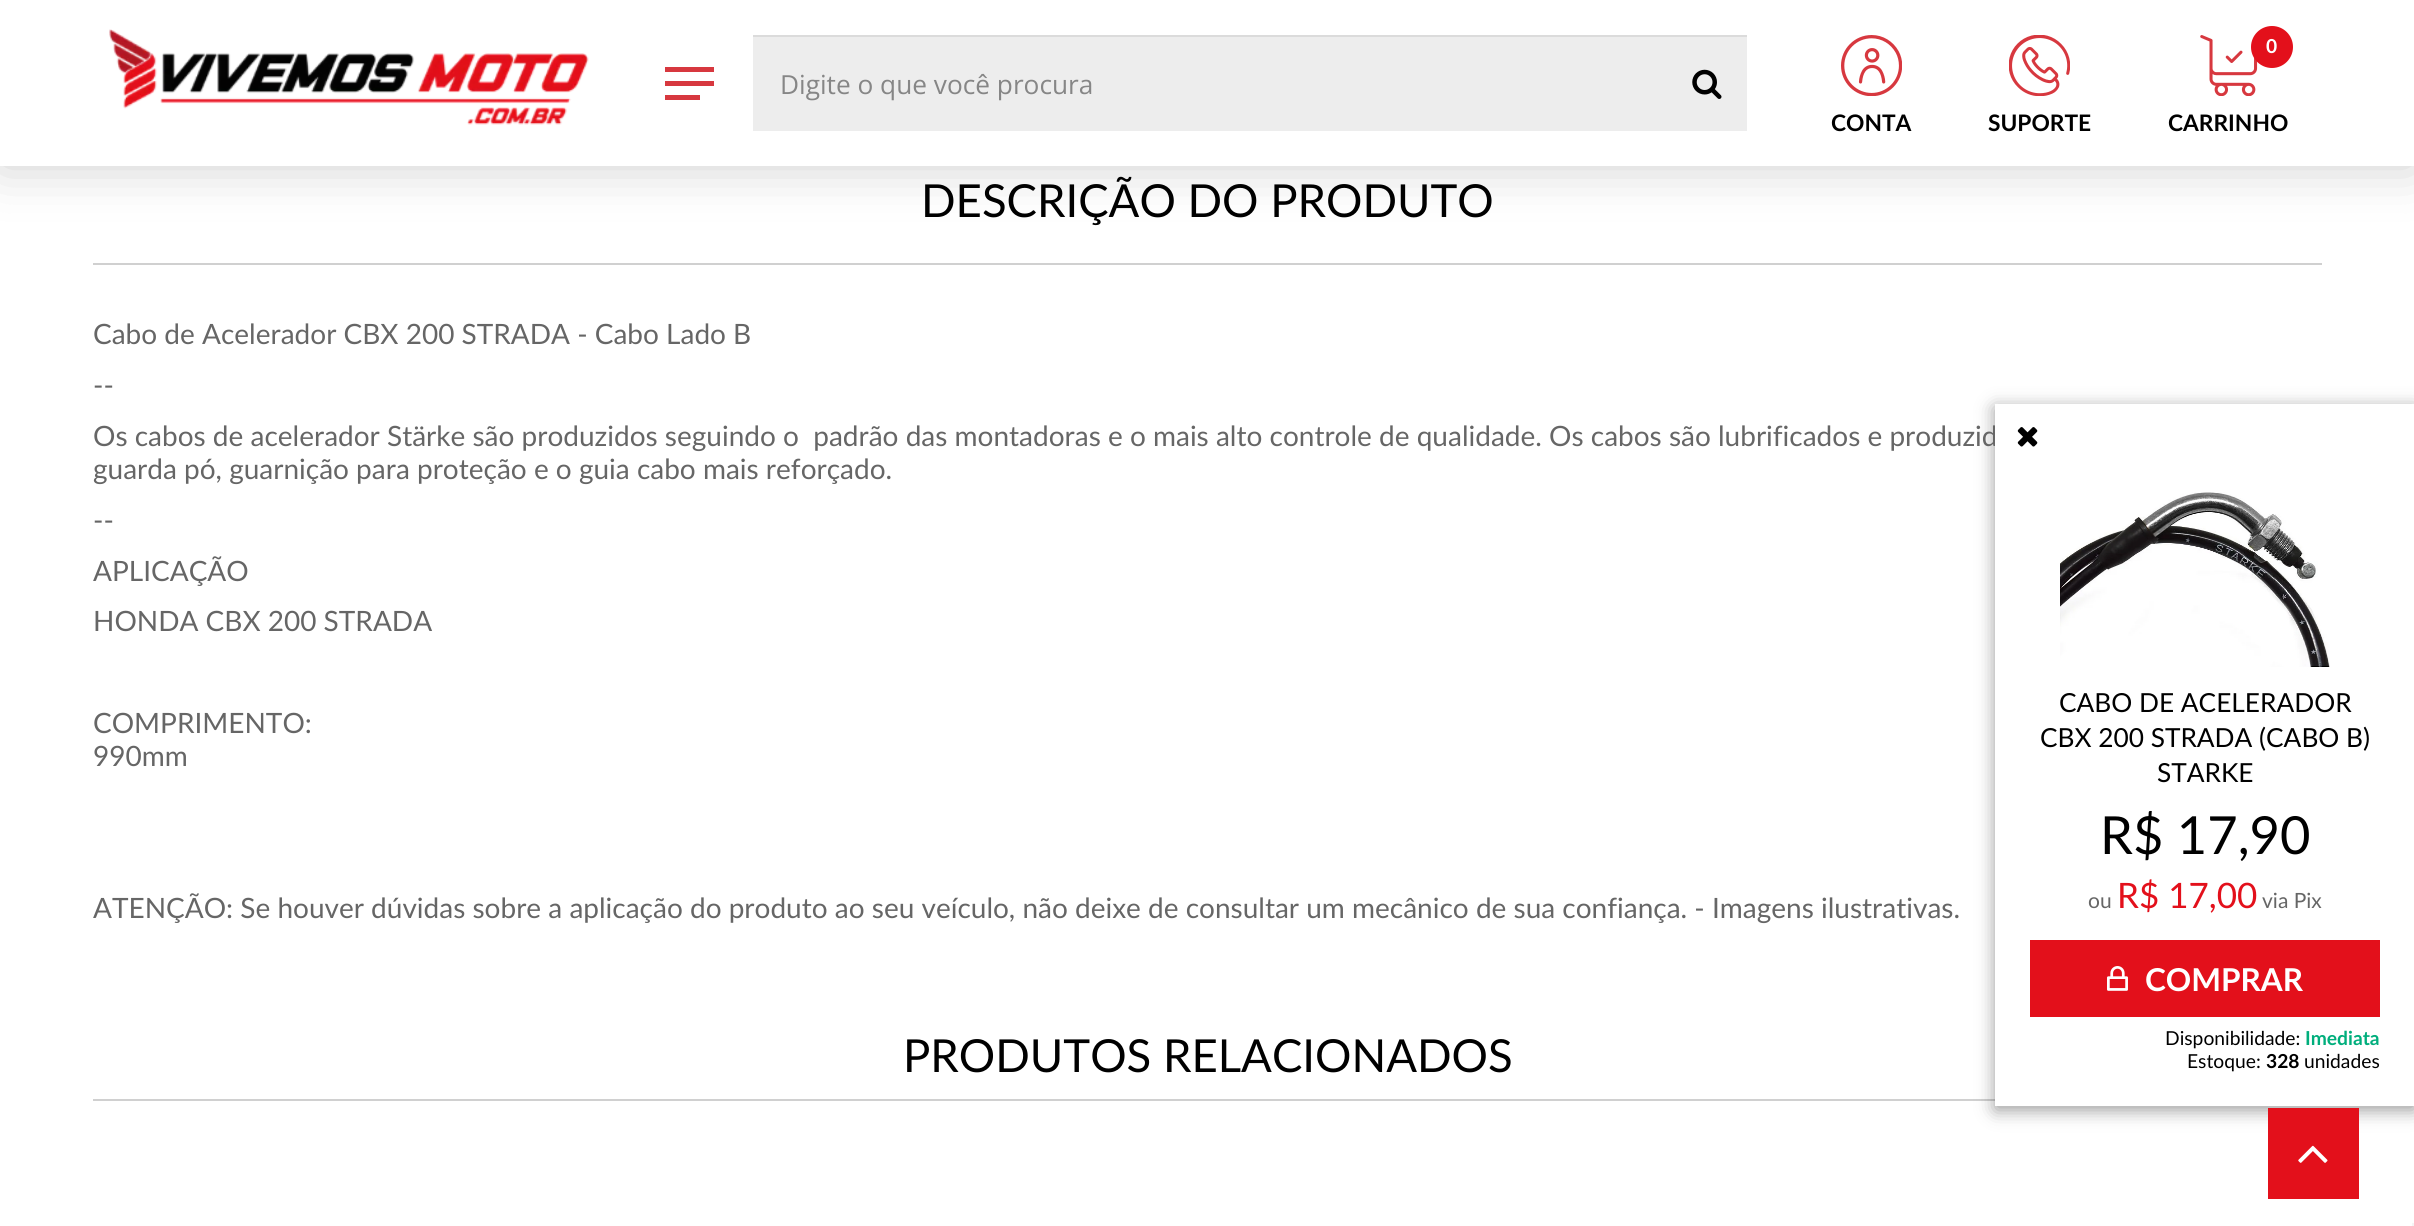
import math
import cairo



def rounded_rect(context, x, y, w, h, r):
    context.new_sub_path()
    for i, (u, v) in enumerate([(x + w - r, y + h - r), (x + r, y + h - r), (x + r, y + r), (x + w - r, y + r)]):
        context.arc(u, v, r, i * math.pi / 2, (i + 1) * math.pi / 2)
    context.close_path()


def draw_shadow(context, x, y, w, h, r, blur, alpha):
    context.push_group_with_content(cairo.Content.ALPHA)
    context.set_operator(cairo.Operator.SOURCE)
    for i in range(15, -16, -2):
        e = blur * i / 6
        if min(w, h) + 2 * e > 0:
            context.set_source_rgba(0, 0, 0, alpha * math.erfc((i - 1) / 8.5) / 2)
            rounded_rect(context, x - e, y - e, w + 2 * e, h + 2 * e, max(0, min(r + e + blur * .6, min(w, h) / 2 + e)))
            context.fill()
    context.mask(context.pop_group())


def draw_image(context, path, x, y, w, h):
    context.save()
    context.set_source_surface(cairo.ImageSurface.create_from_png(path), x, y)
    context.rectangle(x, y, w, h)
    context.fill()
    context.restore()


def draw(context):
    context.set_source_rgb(1, 1, 1)
    context.paint()
    context.set_source_rgb(0, 0, 0)
    draw_shadow(context, 0, 0, 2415, 166, 0, 26, 0.2)
    context.set_source_rgb(1, 1, 1)
    context.rectangle(0, 0, 2414, 166)
    context.fill()
    draw_image(context, "images/1.png", 109, 29, 480, 96)
    context.set_source_rgb(215 / 255, 56 / 255, 63 / 255)
    context.rectangle(665, 67, 49, 5)
    context.fill()
    context.rectangle(665, 81, 49, 5)
    context.fill()
    context.rectangle(665, 95, 35, 5)
    context.fill()
    context.set_source_rgb(237 / 255, 237 / 255, 237 / 255)
    context.rectangle(753, 37, 994, 94)
    context.fill()
    context.set_source_rgb(219 / 255, 219 / 255, 219 / 255)
    context.rectangle(753, 35, 994, 2)
    context.fill()
    draw_image(context, "images/2.png", 1692, 69, 30, 30)
    draw_image(context, "images/3.png", 1841, 35, 61, 61)
    draw_image(context, "images/4.png", 2009, 35, 61, 61)
    draw_image(context, "images/5.png", 2200, 35, 58, 61)
    context.set_source_rgb(227 / 255, 16 / 255, 27 / 255)
    context.arc(2272, 47, 20, 0, 2 * math.pi)
    context.fill_preserve()
    context.stroke()
    context.set_source_rgb(208 / 255, 208 / 255, 208 / 255)
    context.rectangle(93, 263, 2229, 2)
    context.fill()
    context.rectangle(93, 1099, 1902, 2)
    context.fill()
    context.set_source_rgb(0, 0, 0)
    draw_shadow(context, 1995, 408, 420, 702, 0, 9, 0.4)
    context.set_source_rgb(227 / 255, 16 / 255, 27 / 255)
    context.rectangle(2268, 1108, 91, 91)
    context.fill()
    draw_image(context, "images/9.png", 2298, 1145, 30, 18)
    context.set_source_rgb(245 / 255, 245 / 255, 245 / 255)
    context.rectangle(2412, 1223, 2, 3)
    context.fill()
    context.select_font_face("Open Sans")
    context.set_font_size(26.25)
    context.set_source_rgb(134 / 255, 134 / 255, 134 / 255)
    context.move_to(780, 94)
    context.show_text("Digite o que você procura")
    context.select_font_face("Lato", cairo.FontSlant.NORMAL, cairo.FontWeight.BOLD)
    context.set_font_size(22.75)
    context.set_source_rgb(0, 0, 0)
    context.move_to(1831, 131)
    context.show_text("CONTA")
    context.move_to(1988, 131)
    context.show_text("SUPORTE")
    context.set_font_size(19.25)
    context.set_source_rgb(1, 1, 1)
    context.move_to(2266, 53)
    context.show_text("0")
    context.set_font_size(22.75)
    context.set_source_rgb(0, 0, 0)
    context.move_to(2168, 131)
    context.show_text("CARRINHO")
    context.select_font_face("Lato")
    context.set_font_size(45.5)
    context.move_to(921, 217)
    context.show_text("DESCRIÇÃO DO PRODUTO")
    context.set_font_size(28)
    context.set_source_rgb(102 / 255, 102 / 255, 102 / 255)
    context.move_to(93, 344)
    context.show_text("Cabo de Acelerador CBX 200 STRADA - Cabo Lado B")
    context.move_to(93, 395)
    context.show_text("--")
    context.move_to(93, 446)
    context.show_text("Os cabos de acelerador Stärke são produzidos seguindo o  padrão das montadoras e o mais alto controle de qualidade. Os cabos são lubrificados e produzid")
    context.move_to(93, 479)
    context.show_text("guarda pó, guarnição para proteção e o guia cabo mais reforçado.")
    context.move_to(93, 530)
    context.show_text("--")
    context.move_to(93, 581)
    context.show_text("APLICAÇÃO")
    context.move_to(93, 631)
    context.show_text("HONDA CBX 200 STRADA")
    context.move_to(93, 733)
    context.show_text("COMPRIMENTO:")
    context.move_to(93, 766)
    context.show_text("990mm")
    context.move_to(93, 918)
    context.show_text("ATENÇÃO: Se houver dúvidas sobre a aplicação do produto ao seu veículo, não deixe de consultar um mecânico de sua confiança. - Imagens ilustrativas.")
    context.set_source_rgb(1, 1, 1)
    context.rectangle(1995, 404, 419, 702)
    context.fill()
    draw_image(context, "images/6.png", 2017, 427, 21, 20)
    draw_image(context, "images/7.png", 2060, 492, 270, 175)
    context.set_font_size(26.25)
    context.set_source_rgb(0, 0, 0)
    context.move_to(2059, 712)
    context.show_text("CABO DE ACELERADOR")
    context.move_to(2040, 747)
    context.show_text("CBX 200 STRADA (CABO B)")
    context.move_to(2157, 782)
    context.show_text("STARKE")
    context.set_font_size(52.5)
    context.move_to(2100, 854)
    context.show_text("R$ 17,90")
    context.set_font_size(21)
    context.set_source_rgb(102 / 255, 102 / 255, 102 / 255)
    context.move_to(2088, 908)
    context.show_text("ou")
    context.set_font_size(35)
    context.set_source_rgb(227 / 255, 16 / 255, 27 / 255)
    context.move_to(2117, 908)
    context.show_text("R$ 17,00")
    context.set_font_size(21)
    context.set_source_rgb(102 / 255, 102 / 255, 102 / 255)
    context.move_to(2262, 908)
    context.show_text("via Pix")
    context.set_source_rgb(227 / 255, 16 / 255, 27 / 255)
    context.rectangle(2030, 940, 350, 77)
    context.fill()
    draw_image(context, "images/8.png", 2107, 966, 21, 25)
    context.select_font_face("Lato", cairo.FontSlant.NORMAL, cairo.FontWeight.BOLD)
    context.set_font_size(31.5)
    context.set_source_rgb(1, 1, 1)
    context.move_to(2145, 991)
    context.show_text("COMPRAR")
    context.select_font_face("Lato")
    context.set_font_size(19.25)
    context.set_source_rgb(0, 0, 0)
    context.move_to(2165, 1045)
    context.show_text("Disponibilidade:")
    context.select_font_face("Lato", cairo.FontSlant.NORMAL, cairo.FontWeight.BOLD)
    context.set_source_rgb(0, 174 / 255, 124 / 255)
    context.move_to(2305, 1045)
    context.show_text("Imediata")
    context.select_font_face("Lato")
    context.set_source_rgb(0, 0, 0)
    context.move_to(2187, 1068)
    context.show_text("Estoque:")
    context.select_font_face("Lato", cairo.FontSlant.NORMAL, cairo.FontWeight.BOLD)
    context.move_to(2266, 1068)
    context.show_text("328")
    context.select_font_face("Lato")
    context.move_to(2304, 1068)
    context.show_text("unidades")
    context.set_font_size(45.5)
    context.move_to(903, 1072)
    context.show_text("PRODUTOS RELACIONADOS")


surface = cairo.ImageSurface(cairo.Format.RGB24, 2414, 1226)
context = cairo.Context(surface)
options = cairo.FontOptions()
options.set_hint_metrics(cairo.HintMetrics.OFF)
options.set_hint_style(cairo.HintStyle.NONE)
context.set_font_options(options)
context.set_miter_limit(4)
draw(context)
surface.write_to_png("out.png")
